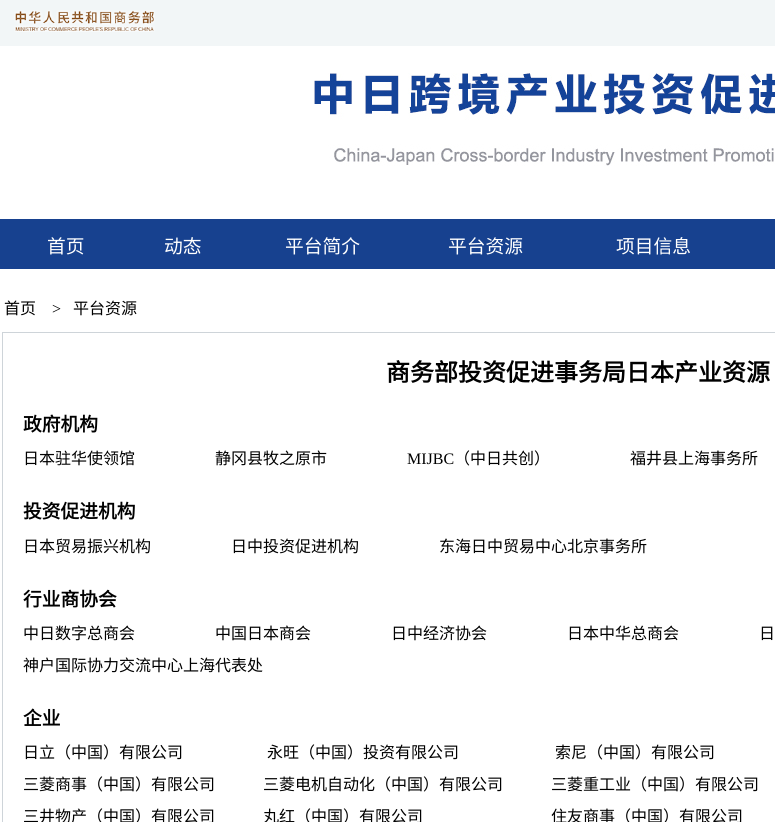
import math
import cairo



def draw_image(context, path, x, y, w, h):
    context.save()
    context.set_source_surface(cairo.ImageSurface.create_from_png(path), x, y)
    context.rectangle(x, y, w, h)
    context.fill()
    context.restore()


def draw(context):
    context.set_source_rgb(1, 1, 1)
    context.paint()
    context.set_source_rgb(242 / 255, 246 / 255, 247 / 255)
    context.rectangle(0, 0, 775, 46)
    context.fill()
    draw_image(context, "images/1.png", 14, 10, 141, 22)
    draw_image(context, "images/2.png", 314, 73, 461, 93)
    context.set_source_rgb(23 / 255, 65 / 255, 143 / 255)
    context.rectangle(0, 219, 775, 50)
    context.fill()
    context.set_source_rgb(206 / 255, 212 / 255, 217 / 255)
    context.rectangle(2, 332, 773, 1)
    context.fill()
    context.rectangle(2, 332, 1, 490)
    context.fill()
    context.select_font_face("Noto Sans CJK SC")
    context.set_font_size(18.75)
    context.set_source_rgb(1, 1, 1)
    context.move_to(47, 253)
    context.show_text("首页")
    context.move_to(164, 253)
    context.show_text("动态")
    context.move_to(285, 253)
    context.show_text("平台简介")
    context.move_to(448, 253)
    context.show_text("平台资源")
    context.move_to(616, 253)
    context.show_text("项目信息")
    context.set_font_size(16)
    context.set_source_rgb(0, 0, 0)
    context.move_to(4, 314)
    context.show_text("首页")
    context.select_font_face("Liberation Serif")
    context.move_to(52, 314)
    context.show_text(">")
    context.select_font_face("Noto Sans CJK SC")
    context.move_to(73, 314)
    context.show_text("平台资源")
    context.select_font_face("Noto Sans CJK SC", cairo.FontSlant.NORMAL, cairo.FontWeight.BOLD)
    context.set_font_size(24)
    context.move_to(386, 381)
    context.show_text("商务部投资促进事务局日本产业资源")
    context.set_font_size(18.75)
    context.move_to(23, 431)
    context.show_text("政府机构")
    context.select_font_face("Noto Sans CJK SC")
    context.set_font_size(16)
    context.move_to(23, 464)
    context.show_text("日本驻华使领馆")
    context.move_to(215, 464)
    context.show_text("静冈县牧之原市")
    context.select_font_face("Liberation Serif")
    context.move_to(407, 464)
    context.show_text("MIJBC")
    context.select_font_face("Noto Sans CJK SC")
    context.move_to(454, 464)
    context.show_text("（中日共创）")
    context.move_to(630, 464)
    context.show_text("福井县上海事务所")
    context.select_font_face("Noto Sans CJK SC", cairo.FontSlant.NORMAL, cairo.FontWeight.BOLD)
    context.set_font_size(18.75)
    context.move_to(23, 518)
    context.show_text("投资促进机构")
    context.select_font_face("Noto Sans CJK SC")
    context.set_font_size(16)
    context.move_to(23, 552)
    context.show_text("日本贸易振兴机构")
    context.move_to(231, 552)
    context.show_text("日中投资促进机构")
    context.move_to(439, 552)
    context.show_text("东海日中贸易中心北京事务所")
    context.select_font_face("Noto Sans CJK SC", cairo.FontSlant.NORMAL, cairo.FontWeight.BOLD)
    context.set_font_size(18.75)
    context.move_to(23, 606)
    context.show_text("行业商协会")
    context.select_font_face("Noto Sans CJK SC")
    context.set_font_size(16)
    context.move_to(23, 639)
    context.show_text("中日数字总商会")
    context.move_to(215, 639)
    context.show_text("中国日本商会")
    context.move_to(391, 639)
    context.show_text("日中经济协会")
    context.move_to(567, 639)
    context.show_text("日本中华总商会")
    context.move_to(759, 639)
    context.show_text("日")
    context.move_to(23, 671)
    context.show_text("神户国际协力交流中心上海代表处")
    context.select_font_face("Noto Sans CJK SC", cairo.FontSlant.NORMAL, cairo.FontWeight.BOLD)
    context.set_font_size(18.75)
    context.move_to(23, 725)
    context.show_text("企业")
    context.select_font_face("Noto Sans CJK SC")
    context.set_font_size(16)
    context.move_to(23, 758)
    context.show_text("日立（中国）有限公司")
    context.move_to(267, 758)
    context.show_text("永旺（中国）投资有限公司")
    context.move_to(555, 758)
    context.show_text("索尼（中国）有限公司")
    context.move_to(23, 790)
    context.show_text("三菱商事（中国）有限公司")
    context.move_to(263, 790)
    context.show_text("三菱电机自动化（中国）有限公司")
    context.move_to(551, 790)
    context.show_text("三菱重工业（中国）有限公司")
    context.move_to(23, 822)
    context.show_text("三井物产（中国）有限公司")
    context.move_to(263, 822)
    context.show_text("丸红（中国）有限公司")
    context.move_to(551, 822)
    context.show_text("住友商事（中国）有限公司")


surface = cairo.ImageSurface(cairo.Format.RGB24, 775, 822)
context = cairo.Context(surface)
options = cairo.FontOptions()
options.set_hint_metrics(cairo.HintMetrics.OFF)
options.set_hint_style(cairo.HintStyle.NONE)
context.set_font_options(options)
context.set_miter_limit(4)
draw(context)
surface.write_to_png("out.png")
